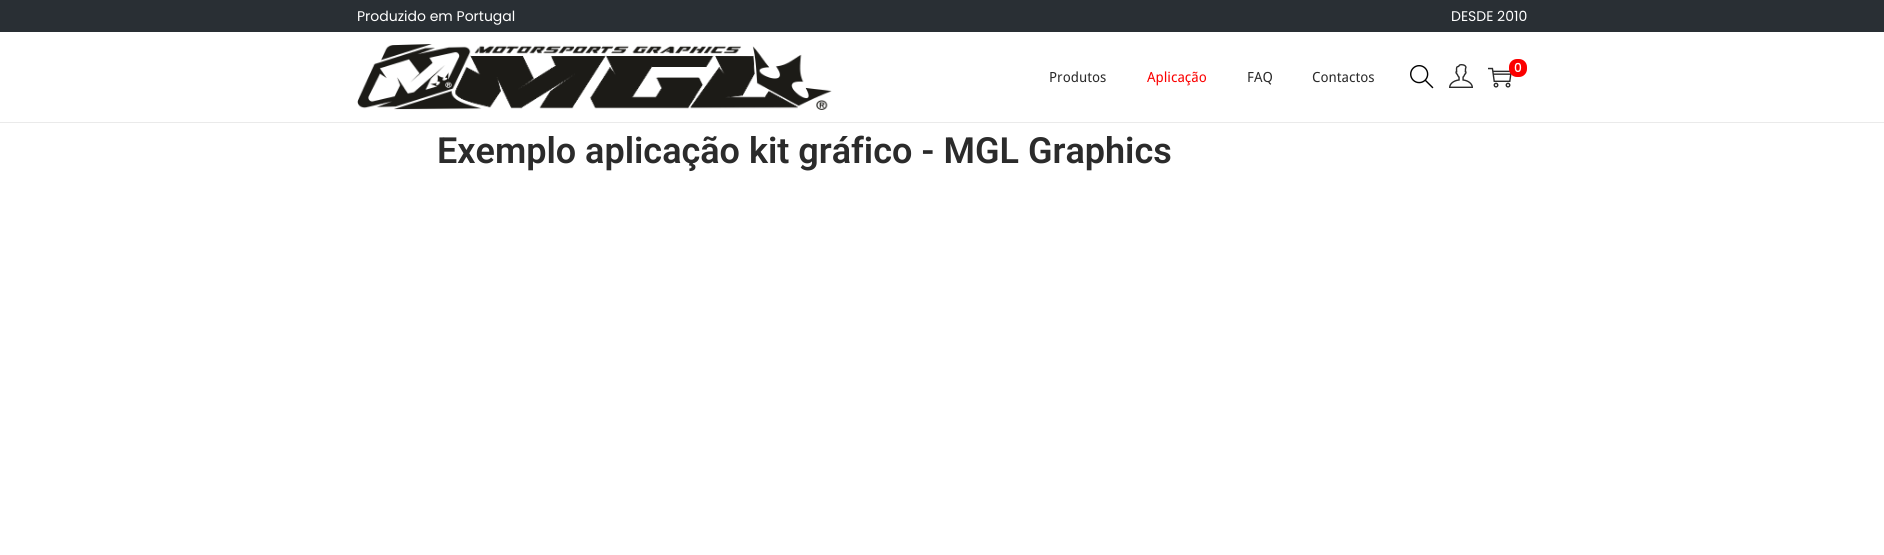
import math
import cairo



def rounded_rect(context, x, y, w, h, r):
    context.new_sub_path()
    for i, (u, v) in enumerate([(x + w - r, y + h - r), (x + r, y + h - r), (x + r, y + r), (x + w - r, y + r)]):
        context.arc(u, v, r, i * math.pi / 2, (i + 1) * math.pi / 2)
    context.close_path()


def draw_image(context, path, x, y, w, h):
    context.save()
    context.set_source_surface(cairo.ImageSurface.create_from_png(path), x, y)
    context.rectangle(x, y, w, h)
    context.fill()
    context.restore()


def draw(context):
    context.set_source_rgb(1, 1, 1)
    context.paint()
    context.set_source_rgb(41 / 255, 47 / 255, 52 / 255)
    context.rectangle(0, 0, 1884, 32)
    context.fill()
    context.set_source_rgb(234 / 255, 234 / 255, 234 / 255)
    context.rectangle(0, 122, 1884, 1)
    context.fill()
    draw_image(context, "images/1.png", 357, 44, 475, 66)
    draw_image(context, "images/2.png", 1410, 65, 24, 24)
    draw_image(context, "images/3.png", 1449, 64, 24, 24)
    draw_image(context, "images/4.png", 1488, 67, 24, 21)
    context.set_source_rgb(251 / 255, 0, 0)
    rounded_rect(context, 1509, 59, 18, 18, 8)
    context.fill()
    context.select_font_face("Poppins")
    context.set_font_size(14)
    context.set_source_rgb(1, 1, 1)
    context.move_to(357, 21)
    context.show_text("Produzido em Portugal")
    context.move_to(1451, 21)
    context.show_text("DESDE 2010")
    context.select_font_face("Poppins", cairo.FontSlant.NORMAL, cairo.FontWeight.BOLD)
    context.set_font_size(12)
    context.move_to(1514, 72)
    context.show_text("0")
    context.select_font_face("Droid Sans")
    context.set_font_size(14)
    context.set_source_rgb(43 / 255, 43 / 255, 43 / 255)
    context.move_to(1049, 82)
    context.show_text("Produtos")
    context.set_source_rgb(251 / 255, 0, 0)
    context.move_to(1147, 82)
    context.show_text("Aplicação")
    context.set_source_rgb(43 / 255, 43 / 255, 43 / 255)
    context.move_to(1247, 82)
    context.show_text("FAQ")
    context.move_to(1312, 82)
    context.show_text("Contactos")
    context.select_font_face("Roboto SemiBold")
    context.set_font_size(36)
    context.move_to(437, 163)
    context.show_text("Exemplo aplicação kit gráfico - MGL Graphics")


surface = cairo.ImageSurface(cairo.Format.RGB24, 1884, 555)
context = cairo.Context(surface)
options = cairo.FontOptions()
options.set_hint_metrics(cairo.HintMetrics.OFF)
options.set_hint_style(cairo.HintStyle.NONE)
context.set_font_options(options)
context.set_miter_limit(4)
draw(context)
surface.write_to_png("out.png")
